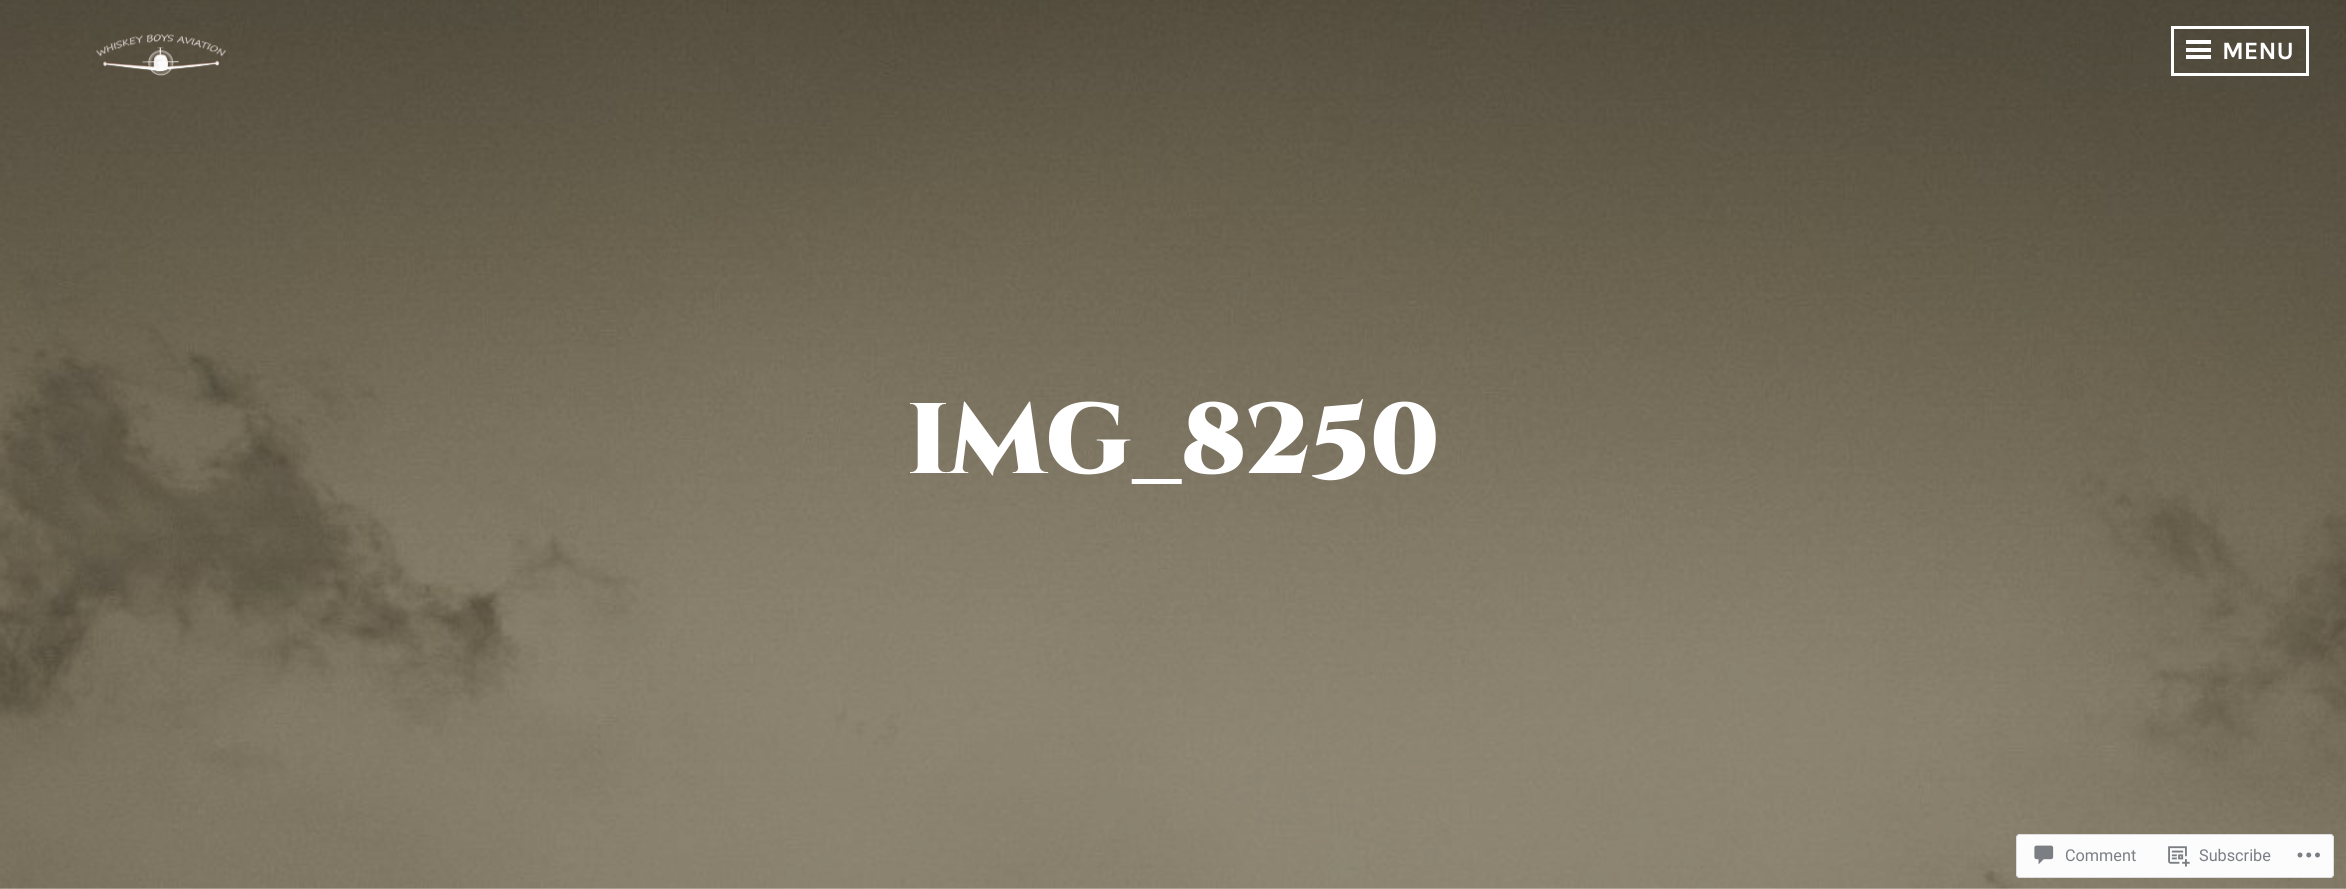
import math
import cairo



def rounded_rect(context, x, y, w, h, r):
    context.new_sub_path()
    for i, (u, v) in enumerate([(x + w - r, y + h - r), (x + r, y + h - r), (x + r, y + r), (x + w - r, y + r)]):
        context.arc(u, v, r, i * math.pi / 2, (i + 1) * math.pi / 2)
    context.close_path()


def draw_image(context, path, x, y, w, h):
    context.save()
    context.set_source_surface(cairo.ImageSurface.create_from_png(path), x, y)
    context.rectangle(x, y, w, h)
    context.fill()
    context.restore()


def draw(context):
    context.set_source_rgb(1, 1, 1)
    context.paint()
    draw_image(context, "images/2.png", 0, 0, 2346, 889)
    draw_image(context, "images/1.png", 96, 34, 130, 42)
    context.rectangle(2172.5, 27.5, 135, 47)
    context.set_source_rgb(1, 1, 1)
    context.set_line_width(3)
    context.stroke()
    context.rectangle(2186, 48, 25, 4)
    context.fill()
    context.rectangle(2186, 40, 25, 4)
    context.fill()
    context.rectangle(2186, 55, 25, 4)
    context.fill()
    context.set_source_rgba(1, 1, 1, 0.98)
    rounded_rect(context, 2016, 834, 318, 44, 4)
    context.fill()
    rounded_rect(context, 2016.5, 834.5, 317, 43, 3.5)
    context.set_source_rgba(220 / 255, 220 / 255, 222 / 255, 0.98)
    context.set_line_width(1)
    context.stroke()
    draw_image(context, "images/3.png", 2034, 845, 20, 20)
    draw_image(context, "images/4.png", 2168, 846, 22, 21)
    draw_image(context, "images/5.png", 2297, 852, 23, 6)
    context.select_font_face("Karla", cairo.FontSlant.NORMAL, cairo.FontWeight.BOLD)
    context.set_font_size(25)
    context.set_source_rgb(1, 1, 1)
    context.move_to(2222, 59)
    context.show_text("MENU")
    context.select_font_face("Cinzel Black")
    context.set_font_size(100)
    context.move_to(907, 473)
    context.show_text("IMG_8250")
    context.select_font_face("Roboto")
    context.set_font_size(16.25)
    context.set_source_rgb(123 / 255, 127 / 255, 132 / 255)
    context.move_to(2065, 861)
    context.show_text("Comment")
    context.move_to(2199, 861)
    context.show_text("Subscribe")


surface = cairo.ImageSurface(cairo.Format.RGB24, 2346, 889)
context = cairo.Context(surface)
options = cairo.FontOptions()
options.set_hint_metrics(cairo.HintMetrics.OFF)
options.set_hint_style(cairo.HintStyle.NONE)
context.set_font_options(options)
context.set_miter_limit(4)
draw(context)
surface.write_to_png("out.png")
